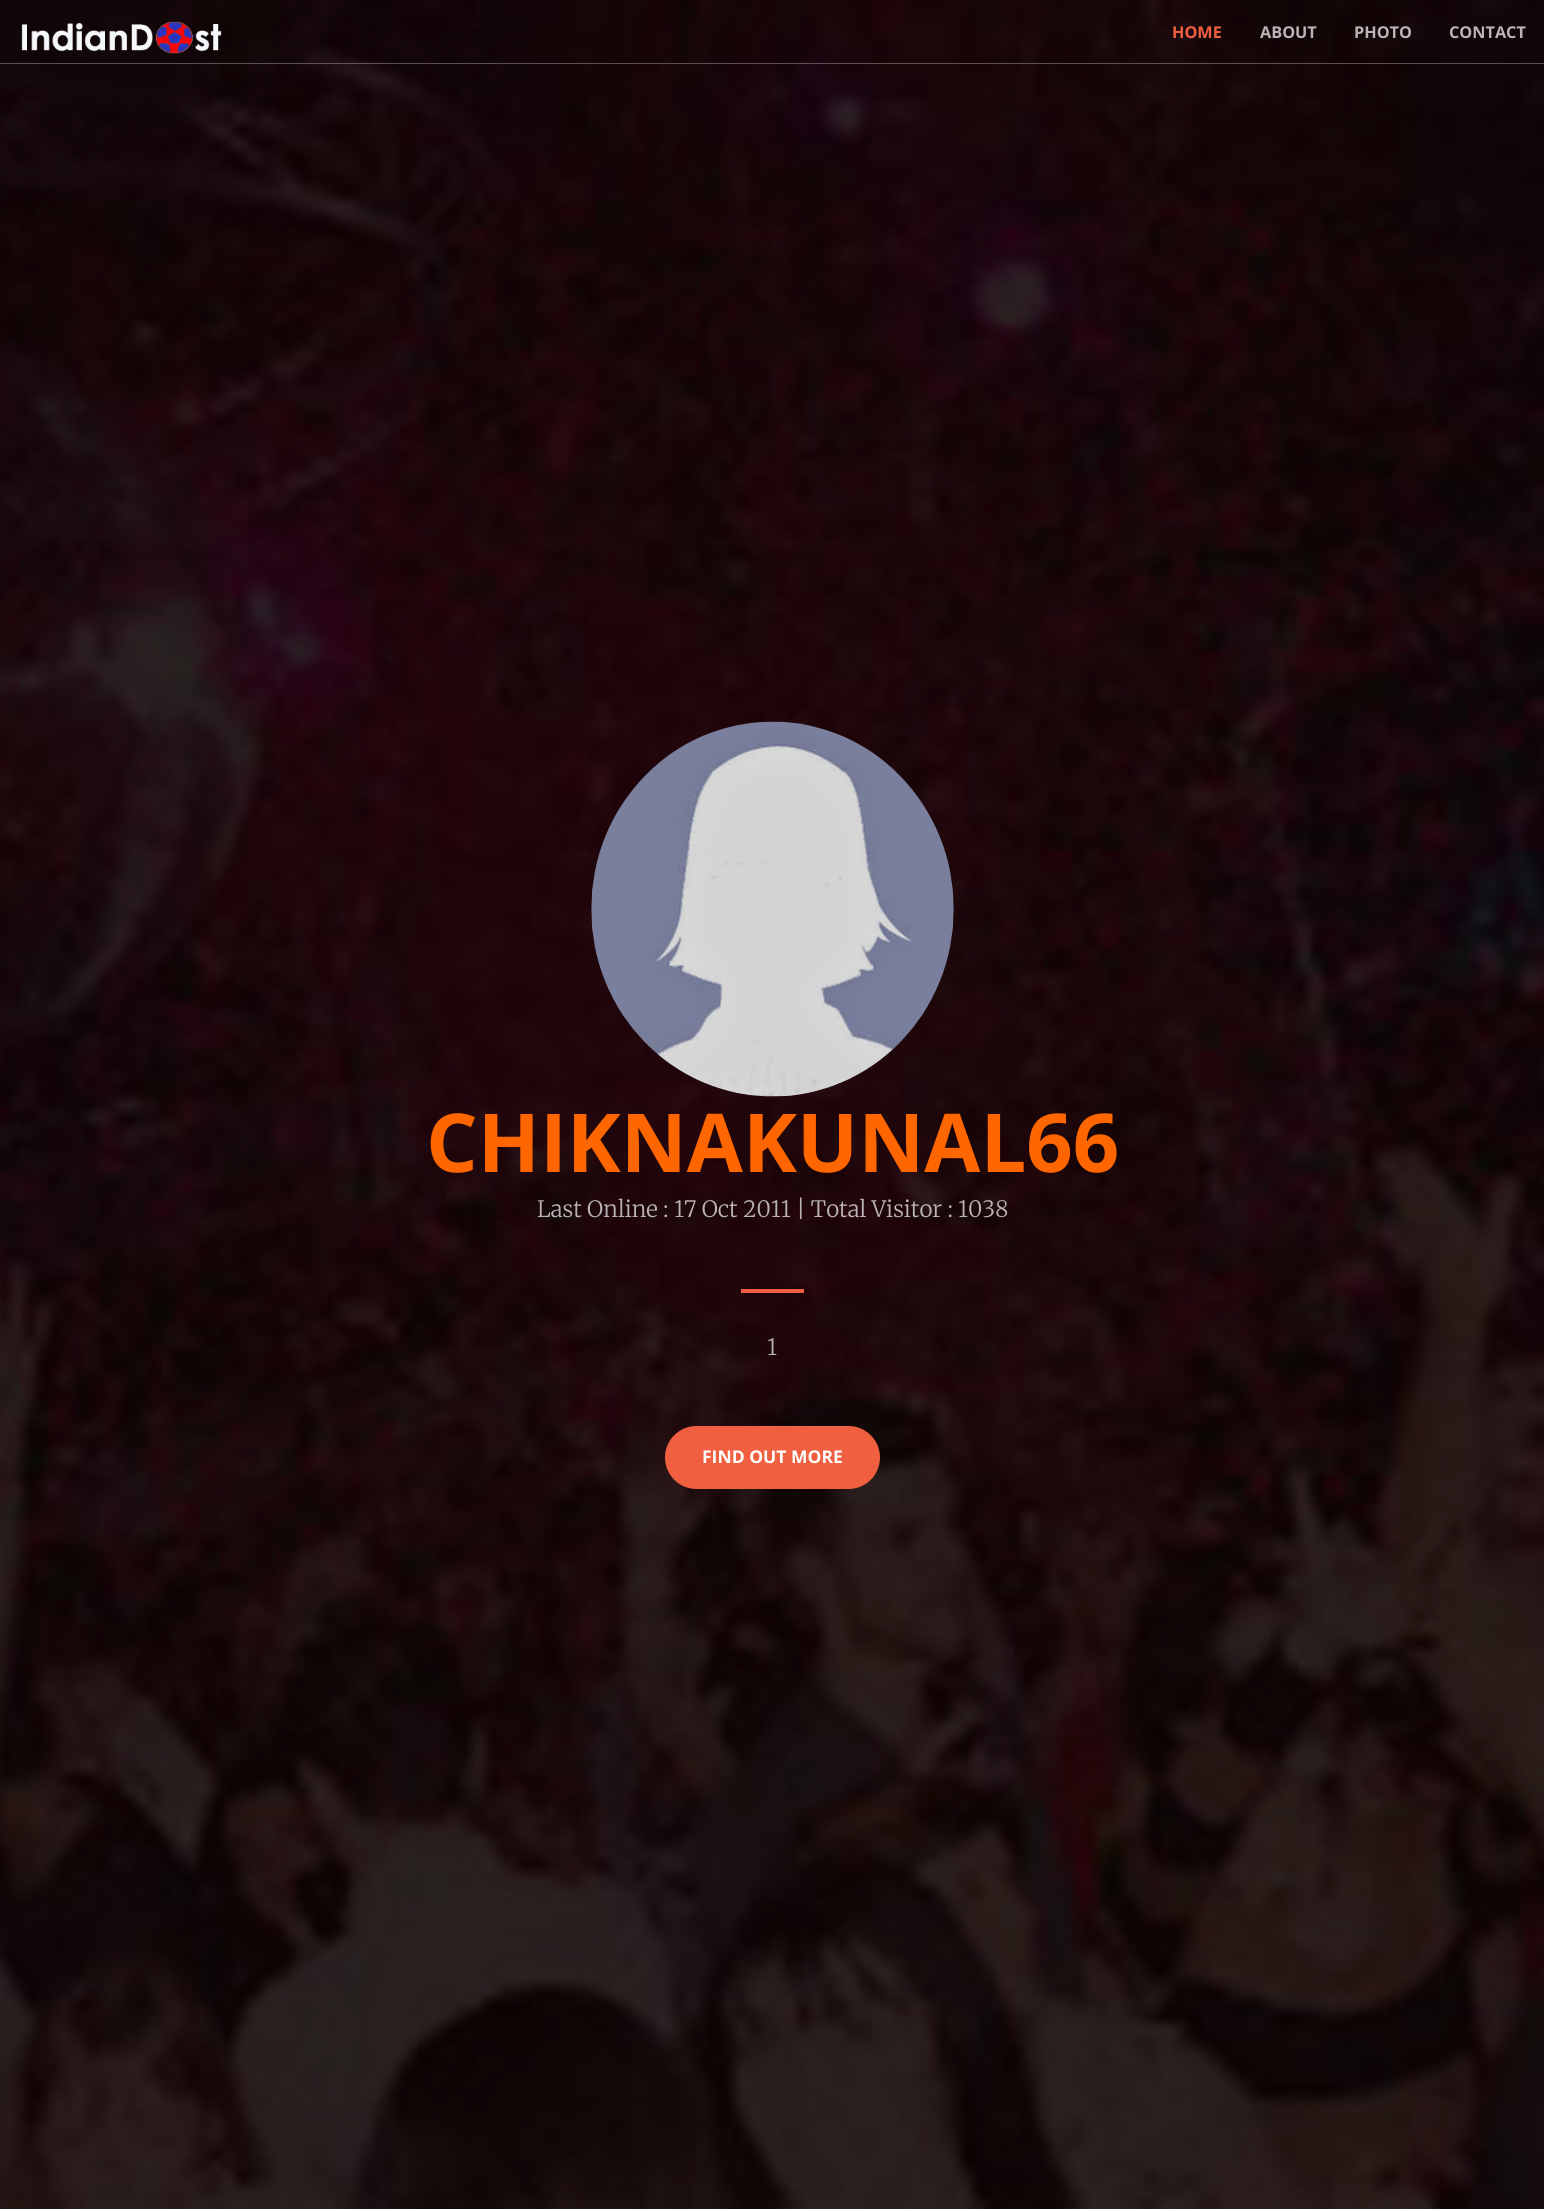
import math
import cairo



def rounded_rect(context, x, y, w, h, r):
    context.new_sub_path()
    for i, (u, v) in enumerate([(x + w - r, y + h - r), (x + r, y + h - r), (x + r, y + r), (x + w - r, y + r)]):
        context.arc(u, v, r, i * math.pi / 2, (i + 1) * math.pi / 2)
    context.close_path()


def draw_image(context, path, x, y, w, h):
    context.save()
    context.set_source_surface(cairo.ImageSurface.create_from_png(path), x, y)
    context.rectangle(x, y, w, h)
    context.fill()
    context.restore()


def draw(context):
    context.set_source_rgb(1, 1, 1)
    context.paint()
    draw_image(context, "images/2.png", 0, 0, 1544, 2209)
    context.set_source_rgba(1, 1, 1, 0.3)
    context.rectangle(0, 63, 1544, 1)
    context.fill()
    draw_image(context, "images/1.png", 21, 21, 201, 33)
    draw_image(context, "images/3.png", 591, 721, 363, 376)
    context.set_source_rgb(240 / 255, 95 / 255, 64 / 255)
    context.rectangle(741, 1289, 63, 4)
    context.fill()
    rounded_rect(context, 665, 1426, 215, 63, 31.5)
    context.fill()
    context.select_font_face("Open Sans", cairo.FontSlant.NORMAL, cairo.FontWeight.BOLD)
    context.set_font_size(16.25)
    context.move_to(1172, 38)
    context.show_text("HOME")
    context.set_source_rgb(187 / 255, 180 / 255, 182 / 255)
    context.move_to(1260, 38)
    context.show_text("ABOUT")
    context.move_to(1354, 38)
    context.show_text("PHOTO")
    context.move_to(1449, 38)
    context.show_text("CONTACT")
    context.set_font_size(81.25)
    context.set_source_rgb(1, 102 / 255, 0)
    context.move_to(426, 1172)
    context.show_text("CHIKNAKUNAL66")
    context.select_font_face("Merriweather Light")
    context.set_font_size(22.5)
    context.set_source_rgb(187 / 255, 180 / 255, 182 / 255)
    context.move_to(537, 1217)
    context.show_text("Last Online : 17 Oct 2011")
    context.move_to(796, 1217)
    context.show_text("| Total Visitor :")
    context.move_to(958, 1217)
    context.show_text("1038")
    context.move_to(767, 1355)
    context.show_text("1")
    context.select_font_face("Open Sans", cairo.FontSlant.NORMAL, cairo.FontWeight.BOLD)
    context.set_font_size(17.5)
    context.set_source_rgb(1, 1, 1)
    context.move_to(702, 1463)
    context.show_text("FIND OUT MORE")


surface = cairo.ImageSurface(cairo.Format.RGB24, 1544, 2209)
context = cairo.Context(surface)
options = cairo.FontOptions()
options.set_hint_metrics(cairo.HintMetrics.OFF)
options.set_hint_style(cairo.HintStyle.NONE)
context.set_font_options(options)
context.set_miter_limit(4)
draw(context)
surface.write_to_png("out.png")
